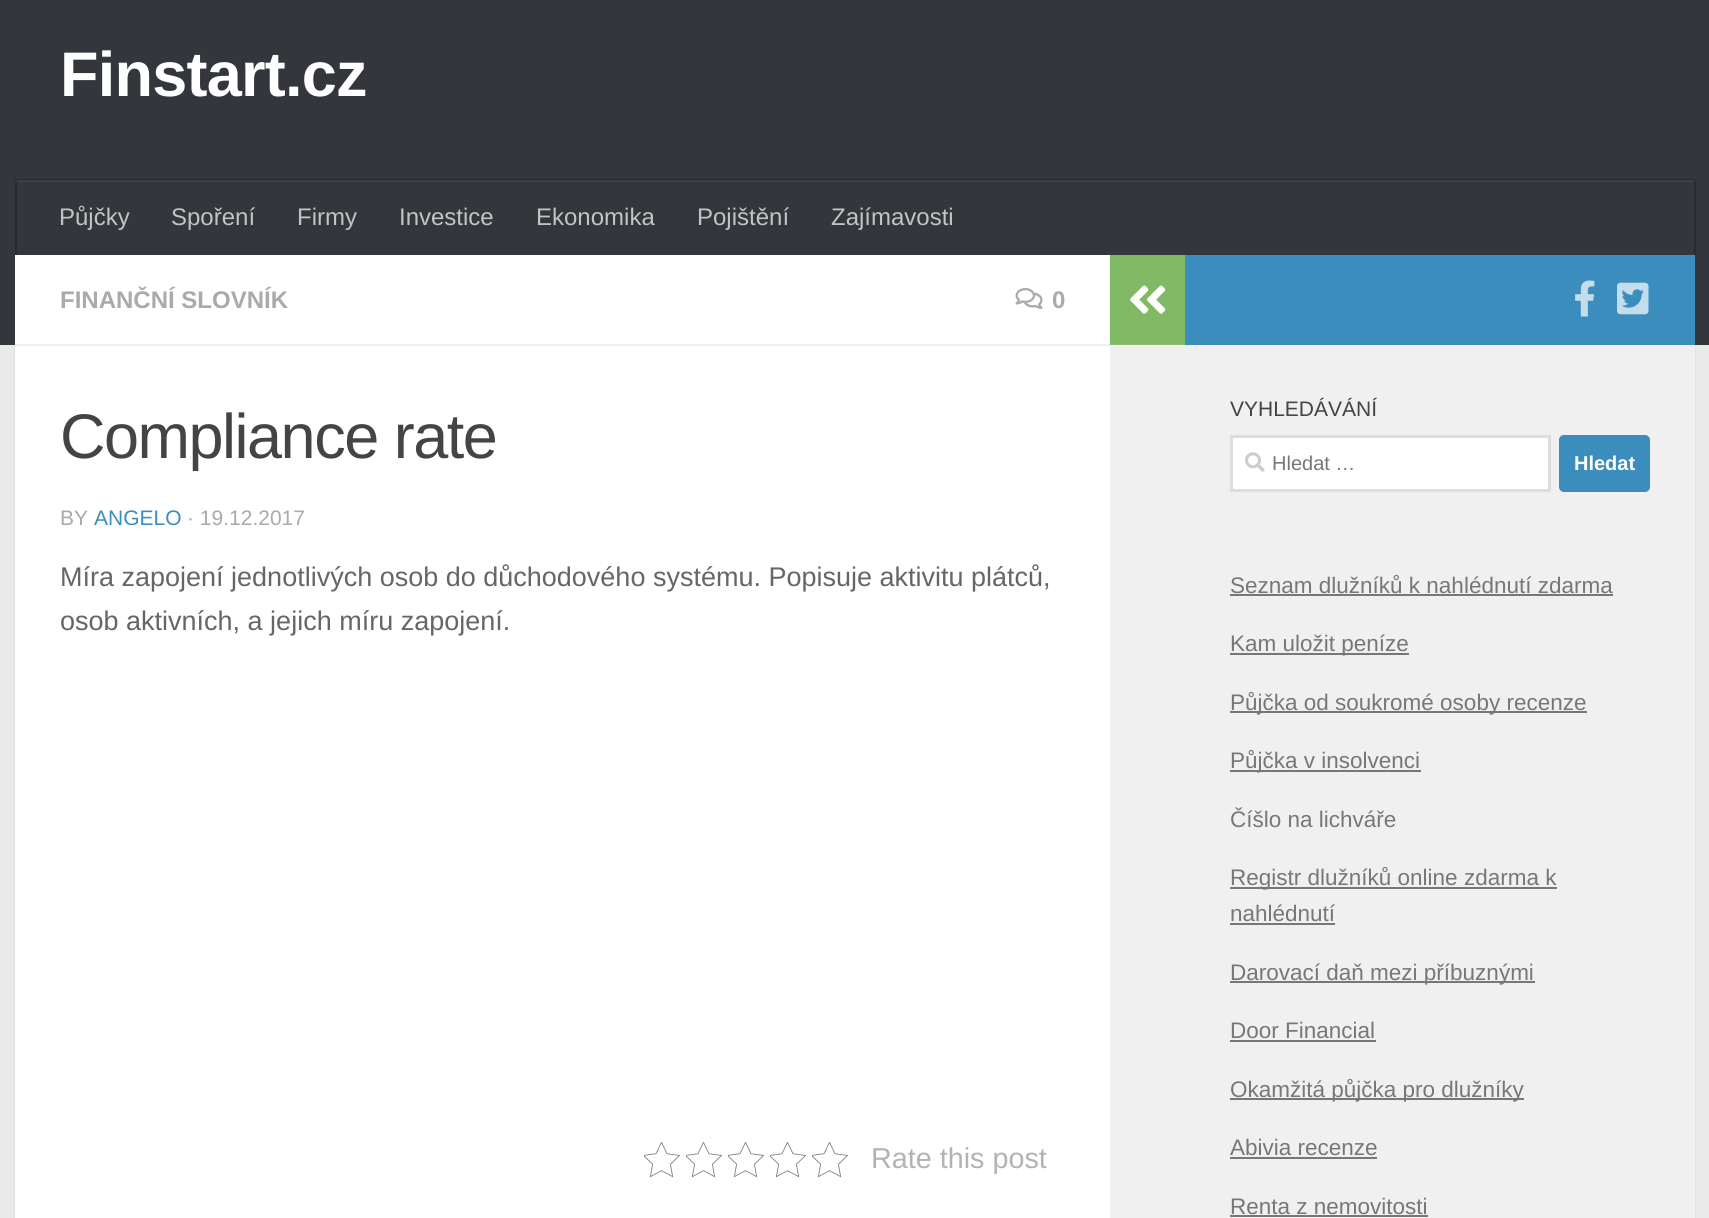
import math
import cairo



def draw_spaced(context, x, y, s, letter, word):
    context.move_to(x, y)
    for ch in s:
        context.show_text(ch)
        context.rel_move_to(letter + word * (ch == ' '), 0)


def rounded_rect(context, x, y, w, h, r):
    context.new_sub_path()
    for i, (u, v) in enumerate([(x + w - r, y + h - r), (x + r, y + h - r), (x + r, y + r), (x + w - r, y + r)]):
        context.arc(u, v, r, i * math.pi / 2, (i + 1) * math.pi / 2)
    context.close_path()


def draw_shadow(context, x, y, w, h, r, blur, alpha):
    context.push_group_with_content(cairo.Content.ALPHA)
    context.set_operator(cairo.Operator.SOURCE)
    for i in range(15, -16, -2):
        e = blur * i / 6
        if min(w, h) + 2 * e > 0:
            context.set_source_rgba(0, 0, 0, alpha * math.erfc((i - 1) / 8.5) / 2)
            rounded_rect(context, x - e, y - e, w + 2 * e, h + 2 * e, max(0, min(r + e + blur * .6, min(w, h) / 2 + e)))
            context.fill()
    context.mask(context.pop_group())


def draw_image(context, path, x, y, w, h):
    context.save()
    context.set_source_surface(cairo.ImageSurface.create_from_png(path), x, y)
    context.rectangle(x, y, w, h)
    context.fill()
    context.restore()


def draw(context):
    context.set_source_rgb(234 / 255, 234 / 255, 234 / 255)
    context.paint()
    context.set_source_rgb(0, 0, 0)
    draw_shadow(context, 15, 257, 1680, 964, 0, 1, 0.1)
    context.set_source_rgb(51 / 255, 54 / 255, 59 / 255)
    context.rectangle(0, 0, 1709, 345)
    context.fill()
    context.set_source_rgb(61 / 255, 64 / 255, 69 / 255)
    context.rectangle(15, 180, 1680, 2)
    context.fill()
    context.set_source_rgb(41 / 255, 43 / 255, 47 / 255)
    context.rectangle(15, 179, 1680, 1)
    context.fill()
    context.rectangle(1694, 180, 2, 75)
    context.fill()
    context.set_source_rgb(52 / 255, 54 / 255, 57 / 255)
    context.rectangle(1694, 180, 1, 2)
    context.fill()
    context.set_source_rgb(41 / 255, 43 / 255, 47 / 255)
    context.rectangle(15, 180, 2, 75)
    context.fill()
    context.set_source_rgb(52 / 255, 54 / 255, 57 / 255)
    context.rectangle(15, 180, 2, 2)
    context.fill()
    context.set_source_rgb(1, 1, 1)
    context.rectangle(15, 255, 1095, 963)
    context.fill()
    context.set_source_rgb(238 / 255, 238 / 255, 238 / 255)
    context.rectangle(15, 344, 1095, 2)
    context.fill()
    draw_image(context, "images/1.png", 1015, 288, 28, 21)
    draw_image(context, "images/2.png", 644, 1142, 36, 36)
    draw_image(context, "images/2.png", 686, 1142, 36, 36)
    draw_image(context, "images/2.png", 728, 1142, 36, 36)
    draw_image(context, "images/2.png", 770, 1142, 36, 36)
    draw_image(context, "images/2.png", 812, 1142, 36, 36)
    context.set_source_rgb(130 / 255, 185 / 255, 101 / 255)
    context.rectangle(1110, 255, 75, 89)
    context.fill()
    context.set_source_rgb(143 / 255, 192 / 255, 116 / 255)
    context.rectangle(1110, 344, 75, 1)
    context.fill()
    draw_image(context, "images/3.png", 1130, 285, 36, 29)
    context.set_source_rgb(59 / 255, 141 / 255, 189 / 255)
    context.rectangle(1185, 255, 510, 90)
    context.fill()
    draw_image(context, "images/4.png", 1575, 280, 20, 37)
    draw_image(context, "images/5.png", 1617, 282, 32, 33)
    context.set_source_rgb(240 / 255, 240 / 255, 240 / 255)
    context.rectangle(1110, 345, 585, 873)
    context.fill()
    context.set_source_rgb(1, 1, 1)
    context.rectangle(1231.5, 436.5, 318, 54)
    context.fill_preserve()
    context.set_source_rgb(221 / 255, 221 / 255, 221 / 255)
    context.set_line_width(3)
    context.stroke()
    draw_image(context, "images/6.png", 1245, 452, 20, 20)
    context.set_source_rgb(59 / 255, 141 / 255, 189 / 255)
    rounded_rect(context, 1559, 435, 91, 57, 5)
    context.fill()
    context.set_source_rgb(119 / 255, 119 / 255, 119 / 255)
    context.rectangle(1230, 594, 383, 2)
    context.fill()
    context.rectangle(1230, 653, 179, 2)
    context.fill()
    context.rectangle(1230, 711, 357, 2)
    context.fill()
    context.rectangle(1230, 770, 191, 2)
    context.fill()
    context.rectangle(1230, 887, 327, 2)
    context.fill()
    context.rectangle(1230, 923, 105, 2)
    context.fill()
    context.rectangle(1230, 981, 305, 2)
    context.fill()
    context.rectangle(1230, 1040, 146, 2)
    context.fill()
    context.rectangle(1230, 1098, 294, 2)
    context.fill()
    context.rectangle(1230, 1157, 147, 2)
    context.fill()
    context.rectangle(1230, 1215, 198, 2)
    context.fill()
    context.select_font_face("Liberation Sans", cairo.FontSlant.NORMAL, cairo.FontWeight.BOLD)
    context.set_font_size(63)
    context.set_source_rgb(1, 1, 1)
    draw_spaced(context, 60, 96, "Finstart.cz", -0.75, 0)
    context.select_font_face("Liberation Sans")
    context.set_font_size(24)
    context.set_source_rgb(194 / 255, 195 / 255, 196 / 255)
    context.move_to(59, 225)
    context.show_text("Půjčky")
    context.move_to(171, 225)
    context.show_text("Spoření")
    context.move_to(297, 225)
    context.show_text("Firmy")
    context.move_to(399, 225)
    context.show_text("Investice")
    context.move_to(536, 225)
    context.show_text("Ekonomika")
    context.move_to(697, 225)
    context.show_text("Pojištění")
    context.move_to(831, 225)
    context.show_text("Zajímavosti")
    context.select_font_face("Liberation Sans", cairo.FontSlant.NORMAL, cairo.FontWeight.BOLD)
    context.set_source_rgb(170 / 255, 170 / 255, 170 / 255)
    context.move_to(60, 308)
    context.show_text("FINANČNÍ SLOVNÍK")
    context.move_to(1052, 308)
    context.show_text("0")
    context.select_font_face("Liberation Sans")
    context.set_font_size(63)
    context.set_source_rgb(68 / 255, 68 / 255, 68 / 255)
    draw_spaced(context, 60, 458, "Compliance rate", -1.5, 0)
    context.set_font_size(21)
    context.set_source_rgb(170 / 255, 170 / 255, 170 / 255)
    context.move_to(60, 525)
    context.show_text("BY")
    context.set_source_rgb(59 / 255, 141 / 255, 189 / 255)
    context.move_to(94, 525)
    context.show_text("ANGELO")
    context.set_source_rgb(170 / 255, 170 / 255, 170 / 255)
    context.move_to(187, 525)
    context.show_text("· 19.12.2017")
    context.set_font_size(27)
    context.set_source_rgb(102 / 255, 102 / 255, 102 / 255)
    context.move_to(60, 586)
    context.show_text("Míra zapojení jednotlivých osob do důchodového systému. Popisuje aktivitu plátců,")
    context.move_to(60, 630)
    context.show_text("osob aktivních, a jejich míru zapojení.")
    context.set_font_size(28.75)
    context.set_source_rgb(179 / 255, 179 / 255, 179 / 255)
    context.move_to(871, 1168)
    context.show_text("Rate this post")
    context.set_font_size(21)
    context.set_source_rgb(68 / 255, 68 / 255, 68 / 255)
    context.move_to(1230, 416)
    context.show_text("VYHLEDÁVÁNÍ")
    context.set_font_size(20)
    context.set_source_rgb(119 / 255, 119 / 255, 119 / 255)
    context.move_to(1272, 470)
    context.show_text("Hledat …")
    context.select_font_face("Liberation Sans", cairo.FontSlant.NORMAL, cairo.FontWeight.BOLD)
    context.set_source_rgb(1, 1, 1)
    context.move_to(1574, 470)
    context.show_text("Hledat")
    context.select_font_face("Liberation Sans")
    context.set_font_size(22.5)
    context.set_source_rgb(119 / 255, 119 / 255, 119 / 255)
    context.move_to(1230, 593)
    context.show_text("Seznam dlužníků k nahlédnutí zdarma")
    context.move_to(1230, 651)
    context.show_text("Kam uložit peníze")
    context.move_to(1230, 710)
    context.show_text("Půjčka od soukromé osoby recenze")
    context.move_to(1230, 768)
    context.show_text("Půjčka v insolvenci")
    context.move_to(1230, 827)
    context.show_text("Číšlo na lichváře")
    context.move_to(1230, 885)
    context.show_text("Registr dlužníků online zdarma k")
    context.move_to(1230, 921)
    context.show_text("nahlédnutí")
    context.move_to(1230, 980)
    context.show_text("Darovací daň mezi příbuznými")
    context.move_to(1230, 1038)
    context.show_text("Door Financial")
    context.move_to(1230, 1097)
    context.show_text("Okamžitá půjčka pro dlužníky")
    context.move_to(1230, 1155)
    context.show_text("Abivia recenze")
    context.move_to(1230, 1214)
    context.show_text("Renta z nemovitosti")


surface = cairo.ImageSurface(cairo.Format.RGB24, 1709, 1218)
context = cairo.Context(surface)
options = cairo.FontOptions()
options.set_hint_metrics(cairo.HintMetrics.OFF)
options.set_hint_style(cairo.HintStyle.NONE)
context.set_font_options(options)
context.set_miter_limit(4)
draw(context)
surface.write_to_png("out.png")
